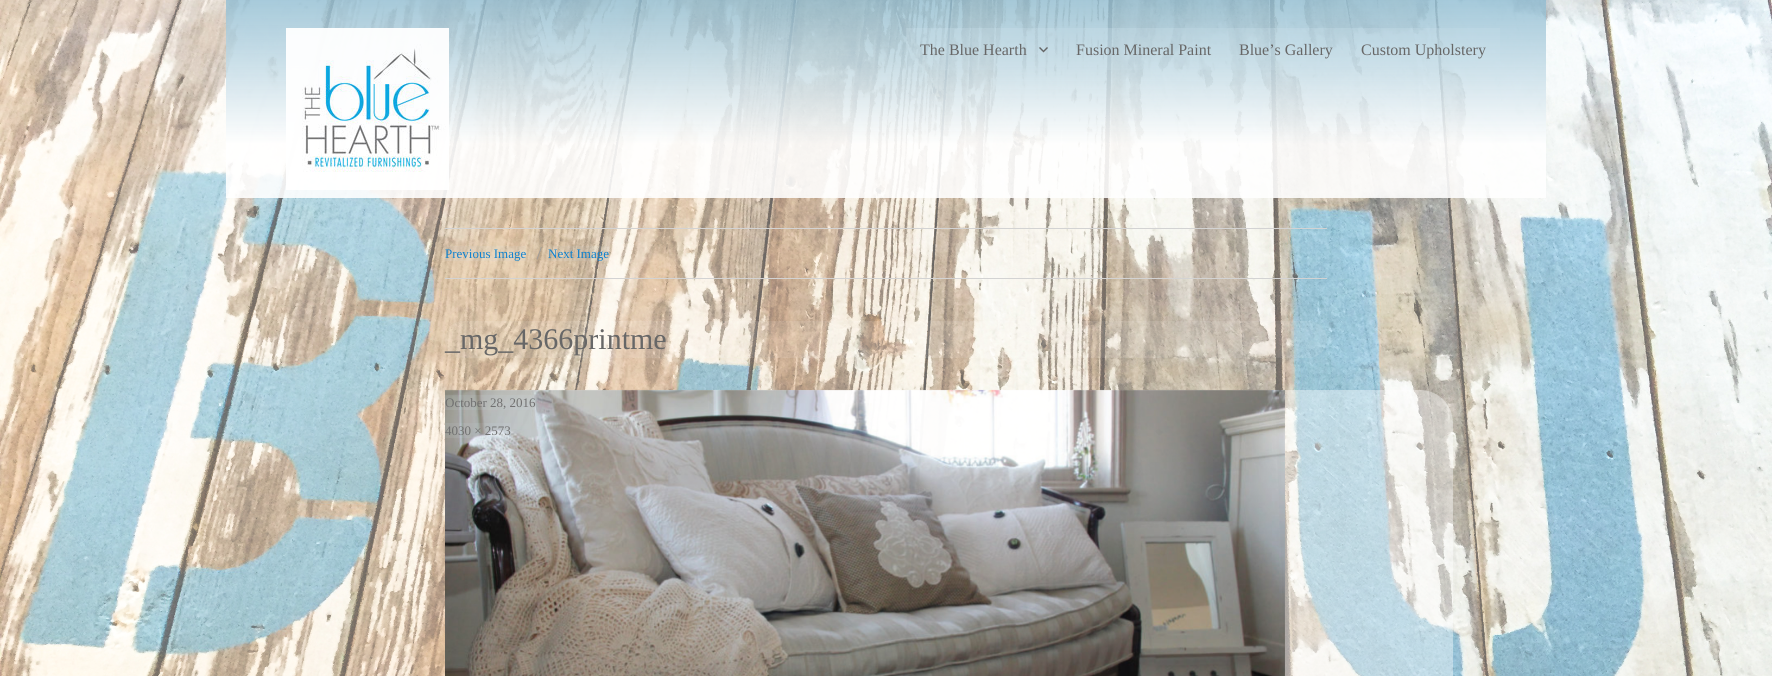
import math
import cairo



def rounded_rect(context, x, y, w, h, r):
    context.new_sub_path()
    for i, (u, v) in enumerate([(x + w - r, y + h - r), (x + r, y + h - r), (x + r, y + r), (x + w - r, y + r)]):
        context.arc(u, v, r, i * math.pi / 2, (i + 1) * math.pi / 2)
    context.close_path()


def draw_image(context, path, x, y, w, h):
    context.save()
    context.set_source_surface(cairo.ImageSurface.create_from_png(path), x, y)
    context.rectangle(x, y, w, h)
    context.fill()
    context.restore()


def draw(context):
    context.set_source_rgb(1, 1, 1)
    context.paint()
    draw_image(context, "images/1.png", 0, 0, 1772, 676)
    gradient = cairo.LinearGradient(886, 0, 886, 198)
    gradient.add_color_stop_rgba(0, 145 / 255, 189 / 255, 210 / 255, 0.8)
    gradient.add_color_stop_rgba(0.73, 1, 1, 1, 0.88)
    context.set_source(gradient)
    context.rectangle(226, 0, 1320, 198)
    context.fill()
    draw_image(context, "images/2.png", 286, 28, 163, 162)
    context.set_source_rgba(207 / 255, 226 / 255, 235 / 255, 0.2)
    context.rectangle(906, 28, 594, 42)
    context.fill()
    context.set_source_rgba(207 / 255, 226 / 255, 235 / 255, 0.1)
    context.rectangle(906, 28, 150, 27)
    context.fill()
    draw_image(context, "images/3.png", 1039, 47, 9, 6)
    context.rectangle(1083, 28, 103, 29)
    context.fill()
    context.rectangle(1227, 28, 120, 28)
    context.fill()
    context.rectangle(1347, 28, 93, 29)
    context.fill()
    context.set_source_rgb(211 / 255, 211 / 255, 211 / 255)
    context.rectangle(445, 228, 882, 1)
    context.fill()
    context.rectangle(445, 278, 882, 1)
    context.fill()
    context.set_source_rgba(207 / 255, 226 / 255, 235 / 255, 0.1)
    context.rectangle(445, 246, 81, 15)
    context.fill()
    context.rectangle(548, 246, 61, 15)
    context.fill()
    context.set_source_rgba(1, 1, 1, 0.1)
    rounded_rect(context, 445, 321, 882, 37, 18.5)
    context.fill()
    context.set_source_rgba(1, 1, 1, 0.4)
    rounded_rect(context, 445, 390, 1008, 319, 33)
    context.fill()
    draw_image(context, "images/4.png", 445, 389, 840, 287)
    context.set_source_rgba(207 / 255, 226 / 255, 235 / 255, 0.1)
    context.rectangle(445, 395, 91, 15)
    context.fill()
    context.rectangle(445, 423, 66, 15)
    context.fill()
    context.select_font_face("Liberation Serif")
    context.set_font_size(16)
    context.set_source_rgb(103 / 255, 103 / 255, 103 / 255)
    context.move_to(920, 55)
    context.show_text("The Blue Hearth")
    context.move_to(1076, 55)
    context.show_text("Fusion Mineral Paint")
    context.move_to(1239, 55)
    context.show_text("Blue’s Gallery")
    context.move_to(1361, 55)
    context.show_text("Custom Upholstery")
    context.set_font_size(13)
    context.set_source_rgb(13 / 255, 129 / 255, 207 / 255)
    context.move_to(445, 258)
    context.show_text("Previous Image")
    context.select_font_face("Montserrat")
    context.set_source_rgb(155 / 255, 155 / 255, 155 / 255)
    context.move_to(537, 258)
    context.show_text("/")
    context.select_font_face("Liberation Serif")
    context.set_source_rgb(13 / 255, 129 / 255, 207 / 255)
    context.move_to(548, 258)
    context.show_text("Next Image")
    context.set_font_size(30)
    context.set_source_rgb(103 / 255, 103 / 255, 103 / 255)
    context.move_to(445, 349)
    context.show_text("_mg_4366printme")
    context.set_font_size(13)
    context.set_source_rgb(112 / 255, 112 / 255, 112 / 255)
    context.move_to(445, 407)
    context.show_text("October 28, 2016")
    context.move_to(445, 435)
    context.show_text("4030 × 2573")


surface = cairo.ImageSurface(cairo.Format.RGB24, 1772, 676)
context = cairo.Context(surface)
options = cairo.FontOptions()
options.set_hint_metrics(cairo.HintMetrics.OFF)
options.set_hint_style(cairo.HintStyle.NONE)
context.set_font_options(options)
context.set_miter_limit(4)
draw(context)
surface.write_to_png("out.png")
